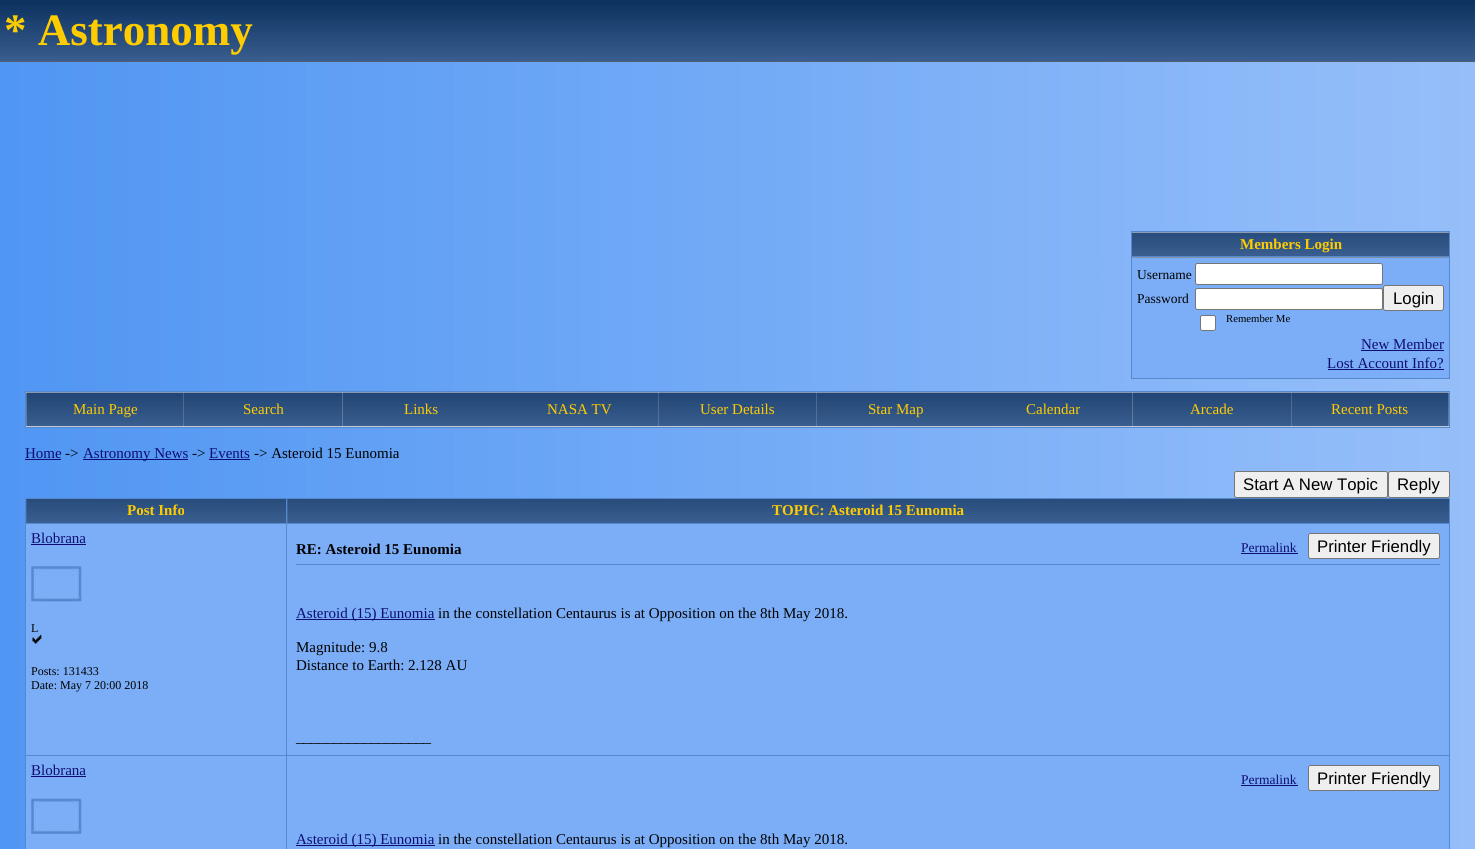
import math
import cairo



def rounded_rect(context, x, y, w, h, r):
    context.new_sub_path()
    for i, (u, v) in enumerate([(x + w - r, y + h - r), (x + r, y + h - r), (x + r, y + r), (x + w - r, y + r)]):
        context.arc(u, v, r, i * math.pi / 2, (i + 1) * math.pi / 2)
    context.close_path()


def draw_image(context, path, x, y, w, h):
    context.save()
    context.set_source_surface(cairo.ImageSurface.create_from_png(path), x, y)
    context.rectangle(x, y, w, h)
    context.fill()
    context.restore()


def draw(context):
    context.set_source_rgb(1, 1, 1)
    context.paint()
    draw_image(context, "images/1.png", 0, 62, 1475, 787)
    draw_image(context, "images/2.png", 0, 0, 1475, 61)
    context.set_source_rgb(82 / 255, 94 / 255, 110 / 255)
    context.rectangle(0, 61, 1475, 1)
    context.fill()
    context.set_source_rgb(239 / 255, 239 / 255, 239 / 255)
    context.rectangle(1132, 232, 317, 26)
    context.fill()
    context.set_source_rgb(85 / 255, 136 / 255, 204 / 255)
    context.rectangle(1131, 231, 319, 1)
    context.fill()
    context.rectangle(1449, 231, 1, 148)
    context.fill()
    context.rectangle(1131, 378, 319, 1)
    context.fill()
    context.rectangle(1131, 231, 1, 148)
    context.fill()
    draw_image(context, "images/3.png", 1132, 232, 317, 26)
    context.rectangle(1131, 256, 319, 1)
    context.fill()
    context.set_source_rgb(123 / 255, 174 / 255, 247 / 255)
    context.rectangle(1132, 258, 317, 120)
    context.fill()
    context.set_source_rgb(1, 1, 1)
    rounded_rect(context, 1195.5, 263.5, 187, 21, 2)
    context.fill_preserve()
    context.set_source_rgb(118 / 255, 118 / 255, 118 / 255)
    context.set_line_width(1)
    context.stroke()
    context.set_source_rgb(1, 1, 1)
    rounded_rect(context, 1195.5, 288.5, 187, 21, 2)
    context.fill_preserve()
    context.set_source_rgb(118 / 255, 118 / 255, 118 / 255)
    context.stroke()
    context.set_source_rgb(239 / 255, 239 / 255, 239 / 255)
    rounded_rect(context, 1383.5, 285.5, 60, 25, 2)
    context.fill_preserve()
    context.set_source_rgb(118 / 255, 118 / 255, 118 / 255)
    context.stroke()
    context.set_source_rgb(1, 1, 1)
    rounded_rect(context, 1200.5, 315.5, 15, 15, 2)
    context.fill_preserve()
    context.set_source_rgb(118 / 255, 118 / 255, 118 / 255)
    context.stroke()
    context.set_source_rgb(13 / 255, 13 / 255, 115 / 255)
    context.rectangle(1361, 350, 83, 1)
    context.fill()
    context.rectangle(1328, 369, 116, 1)
    context.fill()
    context.set_source_rgb(239 / 255, 239 / 255, 239 / 255)
    context.rectangle(25.5, 391.5, 1424, 36)
    context.fill_preserve()
    context.set_source_rgb(85 / 255, 136 / 255, 204 / 255)
    context.stroke()
    draw_image(context, "images/4.png", 26, 392, 158, 35)
    draw_image(context, "images/5.png", 183, 392, 160, 35)
    draw_image(context, "images/6.png", 342, 392, 158, 35)
    draw_image(context, "images/7.png", 500, 392, 159, 35)
    draw_image(context, "images/8.png", 658, 392, 159, 35)
    draw_image(context, "images/9.png", 816, 392, 159, 35)
    draw_image(context, "images/10.png", 975, 392, 158, 35)
    draw_image(context, "images/11.png", 1132, 392, 160, 35)
    draw_image(context, "images/12.png", 1291, 392, 158, 35)
    context.set_source_rgb(13 / 255, 13 / 255, 115 / 255)
    context.rectangle(25, 459, 36, 1)
    context.fill()
    context.rectangle(83, 459, 105, 1)
    context.fill()
    context.rectangle(209, 459, 41, 1)
    context.fill()
    context.set_source_rgb(239 / 255, 239 / 255, 239 / 255)
    rounded_rect(context, 1234.5, 471.5, 153, 26, 2)
    context.fill_preserve()
    context.set_source_rgb(118 / 255, 118 / 255, 118 / 255)
    context.stroke()
    context.set_source_rgb(239 / 255, 239 / 255, 239 / 255)
    rounded_rect(context, 1388.5, 471.5, 61, 26, 2)
    context.fill_preserve()
    context.set_source_rgb(118 / 255, 118 / 255, 118 / 255)
    context.stroke()
    context.set_source_rgb(85 / 255, 136 / 255, 204 / 255)
    context.rectangle(25, 498, 1425, 1)
    context.fill()
    context.rectangle(1449, 498, 1, 351)
    context.fill()
    context.rectangle(25, 498, 1, 351)
    context.fill()
    draw_image(context, "images/13.png", 26, 499, 262, 24)
    context.rectangle(286, 523, 1164, 1)
    context.fill()
    context.set_source_rgb(123 / 255, 174 / 255, 247 / 255)
    context.rectangle(26, 524, 1423, 231)
    context.fill()
    context.set_source_rgb(85 / 255, 136 / 255, 204 / 255)
    context.rectangle(286, 755, 1164, 1)
    context.fill()
    context.set_source_rgb(123 / 255, 174 / 255, 247 / 255)
    context.rectangle(26, 756, 1423, 93)
    context.fill()
    context.set_source_rgb(85 / 255, 136 / 255, 204 / 255)
    context.rectangle(286, 755, 1, 94)
    context.fill()
    context.rectangle(25, 755, 263, 1)
    context.fill()
    context.rectangle(286, 523, 1, 233)
    context.fill()
    context.rectangle(25, 523, 263, 1)
    context.fill()
    context.rectangle(286, 498, 1, 26)
    context.fill()
    draw_image(context, "images/14.png", 287, 499, 1162, 24)
    context.set_source_rgb(13 / 255, 13 / 255, 115 / 255)
    context.rectangle(31, 544, 55, 1)
    context.fill()
    draw_image(context, "images/15.png", 31, 566, 51, 36)
    draw_image(context, "images/16.png", 32, 634, 10, 10)
    context.rectangle(1241, 553, 57, 1)
    context.fill()
    context.set_source_rgb(239 / 255, 239 / 255, 239 / 255)
    rounded_rect(context, 1308.5, 533.5, 131, 25, 2)
    context.fill_preserve()
    context.set_source_rgb(118 / 255, 118 / 255, 118 / 255)
    context.stroke()
    context.set_source_rgb(85 / 255, 136 / 255, 204 / 255)
    context.rectangle(296, 564, 1144, 1)
    context.fill()
    context.set_source_rgb(13 / 255, 13 / 255, 115 / 255)
    context.rectangle(296, 619, 139, 1)
    context.fill()
    context.rectangle(31, 776, 55, 1)
    context.fill()
    draw_image(context, "images/17.png", 31, 798, 51, 36)
    context.rectangle(1241, 785, 57, 1)
    context.fill()
    context.set_source_rgb(239 / 255, 239 / 255, 239 / 255)
    rounded_rect(context, 1308.5, 765.5, 131, 25, 2)
    context.fill_preserve()
    context.set_source_rgb(118 / 255, 118 / 255, 118 / 255)
    context.stroke()
    context.set_source_rgb(13 / 255, 13 / 255, 115 / 255)
    context.rectangle(296, 845, 139, 1)
    context.fill()
    context.select_font_face("Liberation Serif", cairo.FontSlant.NORMAL, cairo.FontWeight.BOLD)
    context.set_font_size(45)
    context.set_source_rgb(1, 204 / 255, 0)
    context.move_to(4, 45)
    context.show_text("* Astronomy")
    context.set_font_size(15)
    context.move_to(1240, 249)
    context.show_text("Members Login")
    context.select_font_face("Liberation Serif")
    context.set_font_size(13.5)
    context.set_source_rgb(0, 0, 0)
    context.move_to(1137, 279)
    context.show_text("Username")
    context.move_to(1137, 303)
    context.show_text("Password")
    context.select_font_face("Liberation Sans")
    context.set_font_size(16.75)
    context.move_to(1393, 304)
    context.show_text("Login")
    context.select_font_face("Liberation Serif")
    context.set_font_size(10.75)
    context.move_to(1226, 322)
    context.show_text("Remember Me")
    context.set_font_size(15)
    context.set_source_rgb(13 / 255, 13 / 255, 115 / 255)
    context.move_to(1361, 349)
    context.show_text("New Member")
    context.move_to(1327, 368)
    context.show_text("Lost Account Info?")
    context.set_source_rgb(1, 204 / 255, 0)
    context.move_to(73, 414)
    context.show_text("Main Page")
    context.move_to(243, 414)
    context.show_text("Search")
    context.move_to(404, 414)
    context.show_text("Links")
    context.move_to(547, 414)
    context.show_text("NASA TV")
    context.move_to(700, 414)
    context.show_text("User Details")
    context.move_to(868, 414)
    context.show_text("Star Map")
    context.move_to(1026, 414)
    context.show_text("Calendar")
    context.move_to(1190, 414)
    context.show_text("Arcade")
    context.move_to(1331, 414)
    context.show_text("Recent Posts")
    context.set_source_rgb(13 / 255, 13 / 255, 115 / 255)
    context.move_to(25, 458)
    context.show_text("Home")
    context.set_source_rgb(0, 0, 0)
    context.move_to(65, 458)
    context.show_text("->")
    context.set_source_rgb(13 / 255, 13 / 255, 115 / 255)
    context.move_to(83, 458)
    context.show_text("Astronomy News")
    context.set_source_rgb(0, 0, 0)
    context.move_to(192, 458)
    context.show_text("->")
    context.set_source_rgb(13 / 255, 13 / 255, 115 / 255)
    context.move_to(209, 458)
    context.show_text("Events")
    context.set_source_rgb(0, 0, 0)
    context.move_to(254, 458)
    context.show_text("-> Asteroid 15 Eunomia")
    context.select_font_face("Liberation Sans")
    context.set_font_size(16.75)
    context.move_to(1243, 490)
    context.show_text("Start A New Topic")
    context.move_to(1397, 490)
    context.show_text("Reply")
    context.select_font_face("Liberation Serif", cairo.FontSlant.NORMAL, cairo.FontWeight.BOLD)
    context.set_font_size(15)
    context.set_source_rgb(1, 204 / 255, 0)
    context.move_to(127, 515)
    context.show_text("Post Info")
    context.move_to(772, 515)
    context.show_text("TOPIC: Asteroid 15 Eunomia")
    context.select_font_face("Liberation Serif")
    context.set_source_rgb(13 / 255, 13 / 255, 115 / 255)
    context.move_to(31, 543)
    context.show_text("Blobrana")
    context.set_font_size(12)
    context.set_source_rgb(0, 0, 0)
    context.move_to(31, 632)
    context.show_text("L")
    context.move_to(31, 675)
    context.show_text("Posts: 131433")
    context.move_to(31, 689)
    context.show_text("Date: May 7 20:00 2018")
    context.select_font_face("Liberation Serif", cairo.FontSlant.NORMAL, cairo.FontWeight.BOLD)
    context.set_font_size(15)
    context.move_to(296, 554)
    context.show_text("RE: Asteroid 15 Eunomia")
    context.select_font_face("Liberation Serif")
    context.set_font_size(13.5)
    context.set_source_rgb(13 / 255, 13 / 255, 115 / 255)
    context.move_to(1241, 552)
    context.show_text("Permalink")
    context.select_font_face("Liberation Sans")
    context.set_font_size(16.75)
    context.set_source_rgb(0, 0, 0)
    context.move_to(1317, 552)
    context.show_text("Printer Friendly")
    context.select_font_face("Liberation Serif")
    context.set_font_size(15)
    context.set_source_rgb(13 / 255, 13 / 255, 115 / 255)
    context.move_to(296, 618)
    context.show_text("Asteroid (15) Eunomia")
    context.set_source_rgb(0, 0, 0)
    context.move_to(438, 618)
    context.show_text("in the constellation Centaurus is at Opposition on the 8th May 2018.")
    context.move_to(296, 652)
    context.show_text("Magnitude: 9.8")
    context.move_to(296, 670)
    context.show_text("Distance to Earth: 2.128 AU")
    context.move_to(296, 742)
    context.show_text("__________________")
    context.set_source_rgb(13 / 255, 13 / 255, 115 / 255)
    context.move_to(31, 775)
    context.show_text("Blobrana")
    context.set_font_size(13.5)
    context.move_to(1241, 784)
    context.show_text("Permalink")
    context.select_font_face("Liberation Sans")
    context.set_font_size(16.75)
    context.set_source_rgb(0, 0, 0)
    context.move_to(1317, 784)
    context.show_text("Printer Friendly")
    context.select_font_face("Liberation Serif")
    context.set_font_size(15)
    context.set_source_rgb(13 / 255, 13 / 255, 115 / 255)
    context.move_to(296, 844)
    context.show_text("Asteroid (15) Eunomia")
    context.set_source_rgb(0, 0, 0)
    context.move_to(438, 844)
    context.show_text("in the constellation Centaurus is at Opposition on the 8th May 2018.")


surface = cairo.ImageSurface(cairo.Format.RGB24, 1475, 849)
context = cairo.Context(surface)
options = cairo.FontOptions()
options.set_hint_metrics(cairo.HintMetrics.OFF)
options.set_hint_style(cairo.HintStyle.NONE)
context.set_font_options(options)
context.set_miter_limit(4)
draw(context)
surface.write_to_png("out.png")
